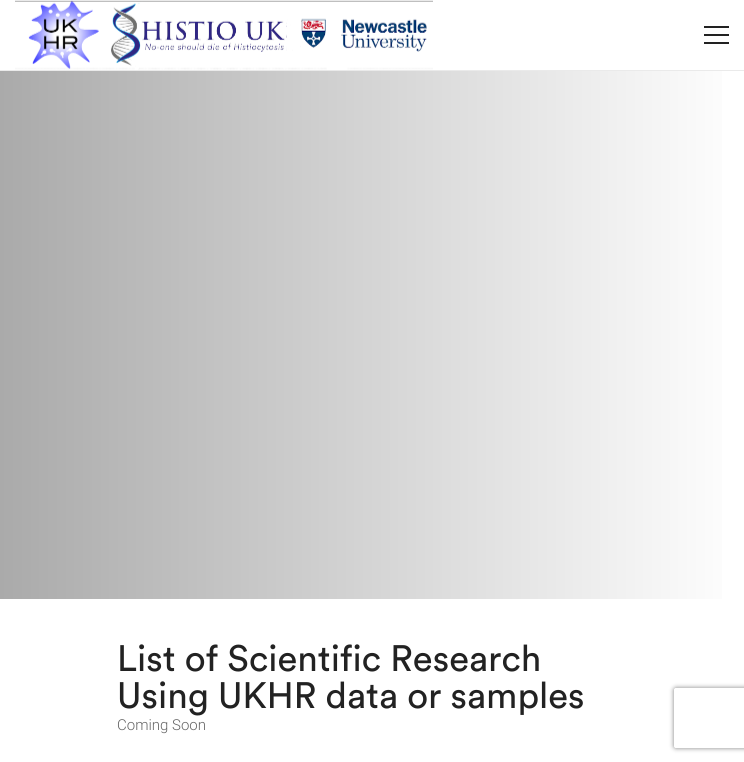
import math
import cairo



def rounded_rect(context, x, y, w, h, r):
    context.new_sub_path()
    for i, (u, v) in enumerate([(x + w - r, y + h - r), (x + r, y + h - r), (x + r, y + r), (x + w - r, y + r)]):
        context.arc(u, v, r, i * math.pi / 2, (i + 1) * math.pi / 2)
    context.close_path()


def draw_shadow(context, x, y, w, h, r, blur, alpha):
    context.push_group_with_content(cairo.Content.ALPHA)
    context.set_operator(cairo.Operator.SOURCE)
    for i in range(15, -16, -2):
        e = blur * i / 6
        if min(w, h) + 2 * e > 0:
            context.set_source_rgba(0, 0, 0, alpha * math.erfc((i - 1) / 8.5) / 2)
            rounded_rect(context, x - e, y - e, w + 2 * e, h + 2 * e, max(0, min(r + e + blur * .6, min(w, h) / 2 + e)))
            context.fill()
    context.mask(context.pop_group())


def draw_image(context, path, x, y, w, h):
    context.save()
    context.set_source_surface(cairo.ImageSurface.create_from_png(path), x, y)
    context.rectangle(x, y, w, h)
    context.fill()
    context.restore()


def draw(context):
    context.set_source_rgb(1, 1, 1)
    context.paint()
    context.set_source_rgb(234 / 255, 234 / 255, 234 / 255)
    context.rectangle(0, 70, 744, 1)
    context.fill()
    draw_image(context, "images/1.png", 15, 0, 418, 70)
    context.set_source_rgb(34 / 255, 34 / 255, 34 / 255)
    context.rectangle(704, 34, 25, 2)
    context.fill()
    context.rectangle(704, 26, 25, 2)
    context.fill()
    context.rectangle(704, 42, 25, 2)
    context.fill()
    gradient = cairo.LinearGradient(0, 335, 744, 335)
    gradient.add_color_stop_rgba(0, 170 / 255, 170 / 255, 170 / 255, 1)
    gradient.add_color_stop_rgba(1, 1, 1, 1, 1)
    context.set_source(gradient)
    context.rectangle(0, 71, 722, 528)
    context.fill()
    context.save()
    context.set_fill_rule(cairo.FillRule.EVEN_ODD)
    context.new_path()
    context.move_to(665, 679)
    context.line_to(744, 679)
    context.line_to(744, 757)
    context.line_to(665, 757)
    context.close_path()
    context.move_to(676, 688)
    context.line_to(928, 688)
    context.curve_to(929, 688, 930, 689, 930, 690)
    context.line_to(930, 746)
    context.curve_to(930, 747, 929, 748, 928, 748)
    context.line_to(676, 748)
    context.curve_to(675, 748, 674, 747, 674, 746)
    context.line_to(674, 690)
    context.curve_to(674, 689, 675, 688, 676, 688)
    context.close_path()
    context.clip()
    context.set_source_rgb(128 / 255, 128 / 255, 128 / 255)
    draw_shadow(context, 674, 688, 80, 60, 2, 2.5, 1)
    context.restore()
    context.select_font_face("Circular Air")
    context.set_font_size(36.5)
    context.set_source_rgb(34 / 255, 34 / 255, 34 / 255)
    context.move_to(117, 671)
    context.show_text("List of Scientific Research")
    context.move_to(117, 708)
    context.show_text("Using UKHR data or samples")
    context.select_font_face("Roboto Light")
    context.set_font_size(15)
    context.set_source_rgb(102 / 255, 102 / 255, 102 / 255)
    context.move_to(117, 730)
    context.show_text("Coming Soon")


surface = cairo.ImageSurface(cairo.Format.RGB24, 744, 762)
context = cairo.Context(surface)
options = cairo.FontOptions()
options.set_hint_metrics(cairo.HintMetrics.OFF)
options.set_hint_style(cairo.HintStyle.NONE)
context.set_font_options(options)
context.set_miter_limit(4)
draw(context)
surface.write_to_png("out.png")
